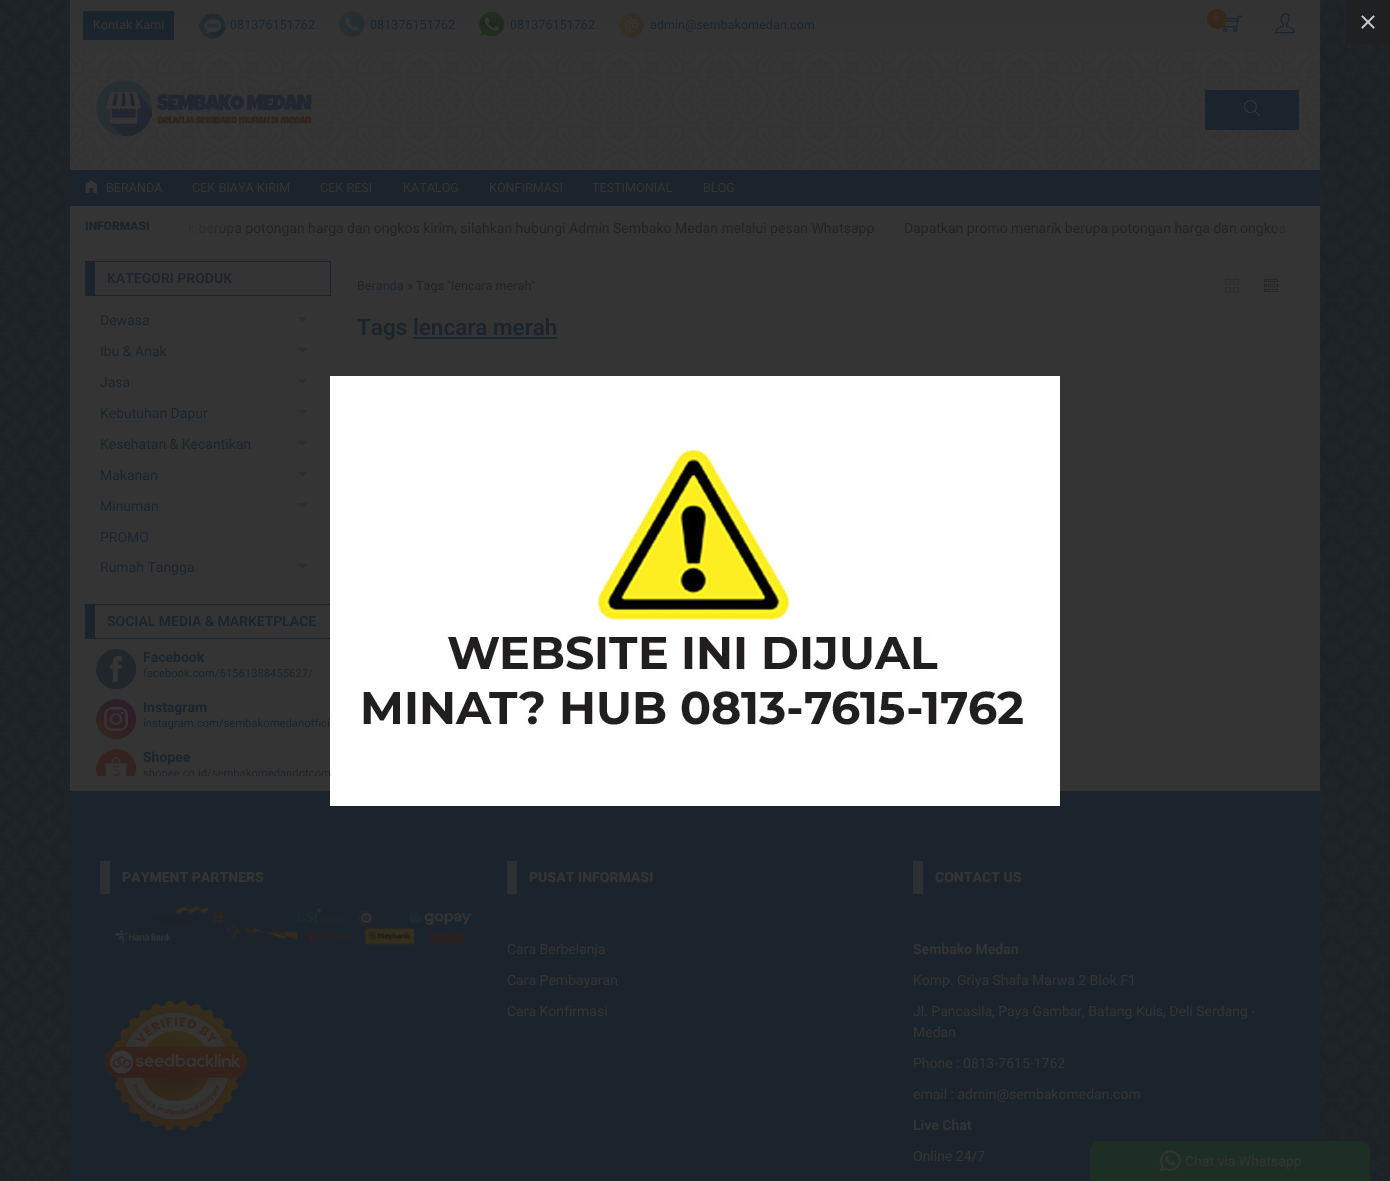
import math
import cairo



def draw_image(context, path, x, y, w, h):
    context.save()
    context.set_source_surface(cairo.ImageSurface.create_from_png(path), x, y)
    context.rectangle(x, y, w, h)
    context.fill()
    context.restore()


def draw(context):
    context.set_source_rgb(27 / 255, 36 / 255, 44 / 255)
    context.paint()
    draw_image(context, "images/1.png", 0, 0, 1390, 1181)
    context.set_source_rgb(30 / 255, 32 / 255, 34 / 255)
    context.rectangle(1346, 0, 44, 44)
    context.fill()
    draw_image(context, "images/2.png", 1361, 15, 14, 14)
    context.set_source_rgb(52 / 255, 52 / 255, 52 / 255)
    context.rectangle(70, 246, 1250, 545)
    context.fill()
    context.set_source_rgb(27 / 255, 36 / 255, 44 / 255)
    context.rectangle(95, 604, 236, 1)
    context.fill()
    context.rectangle(95, 638, 236, 1)
    context.fill()
    context.rectangle(70, 791, 1250, 390)
    context.fill()
    context.set_source_rgb(1, 1, 1)
    context.rectangle(330, 376, 730, 430)
    context.fill()
    draw_image(context, "images/3.png", 361, 447, 664, 280)
    gradient = cairo.LinearGradient(695, 0, 695, 49)
    gradient.add_color_stop_rgba(0, 51 / 255, 51 / 255, 51 / 255, 1)
    gradient.add_color_stop_rgba(1, 52 / 255, 52 / 255, 52 / 255, 1)
    context.set_source(gradient)
    context.rectangle(70, 0, 1250, 49)
    context.fill()
    gradient = cairo.LinearGradient(695, 49, 695, 98)
    gradient.add_color_stop_rgba(0, 51 / 255, 51 / 255, 51 / 255, 1)
    gradient.add_color_stop_rgba(1, 52 / 255, 52 / 255, 52 / 255, 1)
    context.set_source(gradient)
    context.rectangle(70, 49, 1250, 1)
    context.fill()
    context.set_source_rgb(27 / 255, 36 / 255, 44 / 255)
    context.rectangle(83, 11, 91, 29)
    context.fill()
    draw_image(context, "images/4.png", 199, 13, 27, 26)
    draw_image(context, "images/5.png", 339, 11, 26, 26)
    draw_image(context, "images/6.png", 479, 11, 26, 26)
    draw_image(context, "images/7.png", 619, 13, 25, 25)
    draw_image(context, "images/8.png", 1223, 15, 19, 18)
    context.set_source_rgb(52 / 255, 40 / 255, 27 / 255)
    context.arc(1217, 19, 10, 0, 2 * math.pi)
    context.fill()
    draw_image(context, "images/9.png", 1275, 13, 20, 21)
    draw_image(context, "images/10.png", 70, 50, 1250, 120)
    draw_image(context, "images/11.png", 96, 80, 216, 56)
    context.set_source_rgb(27 / 255, 36 / 255, 44 / 255)
    context.rectangle(1205, 90, 94, 40)
    context.fill()
    draw_image(context, "images/12.png", 1244, 100, 17, 17)
    context.rectangle(70, 170, 1250, 36)
    context.fill()
    draw_image(context, "images/13.png", 85, 180, 12, 13)
    context.set_source_rgb(52 / 255, 52 / 255, 52 / 255)
    context.rectangle(70, 206, 1250, 39)
    context.fill()
    context.set_source_rgb(51 / 255, 51 / 255, 51 / 255)
    context.rectangle(70, 245, 1250, 1)
    context.fill()
    context.set_source_rgb(27 / 255, 36 / 255, 44 / 255)
    context.rectangle(95, 261, 236, 1)
    context.fill()
    context.rectangle(330, 261, 1, 35)
    context.fill()
    context.rectangle(95, 295, 236, 1)
    context.fill()
    context.rectangle(85, 261, 10, 35)
    context.fill()
    draw_image(context, "images/14.png", 298, 317, 9, 5)
    draw_image(context, "images/14.png", 298, 348, 9, 5)
    draw_image(context, "images/14.png", 298, 379, 9, 5)
    draw_image(context, "images/14.png", 298, 410, 9, 5)
    draw_image(context, "images/14.png", 298, 441, 9, 5)
    draw_image(context, "images/14.png", 298, 472, 9, 5)
    draw_image(context, "images/14.png", 298, 503, 9, 5)
    draw_image(context, "images/14.png", 298, 564, 9, 5)
    context.rectangle(85, 604, 10, 35)
    context.fill()
    draw_image(context, "images/15.png", 96, 649, 40, 40)
    draw_image(context, "images/16.png", 96, 699, 40, 40)
    draw_image(context, "images/17.png", 96, 749, 40, 27)
    draw_image(context, "images/18.png", 1225, 278, 14, 15)
    draw_image(context, "images/19.png", 1264, 278, 14, 15)
    context.rectangle(413, 337, 144, 2)
    context.fill()
    context.set_source_rgb(45 / 255, 48 / 255, 50 / 255)
    context.rectangle(100, 861, 10, 33)
    context.fill()
    draw_image(context, "images/20.png", 109, 906, 363, 40)
    draw_image(context, "images/21.png", 104, 1000, 144, 131)
    context.rectangle(507, 861, 10, 33)
    context.fill()
    context.rectangle(913, 861, 10, 33)
    context.fill()
    context.set_source_rgb(31 / 255, 46 / 255, 36 / 255)
    context.new_path()
    context.move_to(1100, 1141)
    context.line_to(1360, 1141)
    context.curve_to(1365.5, 1141, 1370, 1145.5, 1370, 1151)
    context.line_to(1370, 1181)
    context.line_to(1090, 1181)
    context.line_to(1090, 1151)
    context.curve_to(1090, 1145.5, 1094.5, 1141, 1100, 1141)
    context.close_path()
    context.fill()
    draw_image(context, "images/22.png", 1159, 1150, 23, 22)
    context.select_font_face("Roboto")
    context.set_font_size(12.6)
    context.set_source_rgb(52 / 255, 52 / 255, 52 / 255)
    context.move_to(93, 29)
    context.show_text("Kontak Kami")
    context.set_source_rgb(27 / 255, 36 / 255, 44 / 255)
    context.move_to(230, 29)
    context.show_text("081376151762")
    context.move_to(370, 29)
    context.show_text("081376151762")
    context.move_to(510, 29)
    context.show_text("081376151762")
    context.move_to(650, 29)
    context.show_text("admin@sembakomedan.com")
    context.set_font_size(8)
    context.set_source_rgb(52 / 255, 52 / 255, 52 / 255)
    context.move_to(1214, 21)
    context.show_text("0")
    context.set_font_size(12.6)
    context.move_to(106, 192)
    context.show_text("BERANDA")
    context.move_to(192, 192)
    context.show_text("CEK BIAYA KIRIM")
    context.move_to(320, 192)
    context.show_text("CEK RESI")
    context.move_to(403, 192)
    context.show_text("KATALOG")
    context.move_to(489, 192)
    context.show_text("KONFIRMASI")
    context.move_to(592, 192)
    context.show_text("TESTIMONIAL")
    context.move_to(703, 192)
    context.show_text("BLOG")
    context.select_font_face("Roboto Black")
    context.set_font_size(12)
    context.set_source_rgb(27 / 255, 36 / 255, 44 / 255)
    context.move_to(85, 230)
    context.show_text("INFORMASI")
    context.select_font_face("Roboto")
    context.set_font_size(14)
    context.set_source_rgb(34 / 255, 34 / 255, 34 / 255)
    context.move_to(188, 233)
    context.show_text("k berupa potongan harga dan ongkos kirim, silahkan hubungi Admin Sembako Medan melalui pesan Whatsapp")
    gradient = cairo.LinearGradient(70, 226, 250, 226)
    gradient.add_color_stop_rgba(0, 52 / 255, 52 / 255, 52 / 255, 1)
    gradient.add_color_stop_rgba(0.5, 52 / 255, 52 / 255, 52 / 255, 1)
    gradient.add_color_stop_rgba(1, 52 / 255, 52 / 255, 52 / 255, 0)
    context.set_source(gradient)
    context.rectangle(188, 222, 49, 14)
    context.fill()
    context.set_source_rgb(34 / 255, 34 / 255, 34 / 255)
    context.move_to(904, 233)
    context.show_text("Dapatkan promo menarik berupa potongan harga dan ongkos")
    gradient = cairo.LinearGradient(1320, 226, 1270, 226)
    gradient.add_color_stop_rgba(0, 52 / 255, 52 / 255, 52 / 255, 1)
    gradient.add_color_stop_rgba(0.5, 52 / 255, 52 / 255, 52 / 255, 1)
    gradient.add_color_stop_rgba(1, 52 / 255, 52 / 255, 52 / 255, 0)
    context.set_source(gradient)
    context.rectangle(1274, 225, 12, 8)
    context.fill()
    context.select_font_face("Roboto SemiBold")
    context.set_source_rgb(27 / 255, 36 / 255, 44 / 255)
    context.move_to(107, 283)
    context.show_text("KATEGORI PRODUK")
    context.select_font_face("Roboto")
    context.move_to(100, 325)
    context.show_text("Dewasa")
    context.move_to(100, 356)
    context.show_text("Ibu & Anak")
    context.move_to(100, 387)
    context.show_text("Jasa")
    context.move_to(100, 418)
    context.show_text("Kebutuhan Dapur")
    context.move_to(100, 449)
    context.show_text("Kesehatan & Kecantikan")
    context.move_to(100, 480)
    context.show_text("Makanan")
    context.move_to(100, 511)
    context.show_text("Minuman")
    context.move_to(100, 542)
    context.show_text("PROMO")
    context.move_to(100, 572)
    context.show_text("Rumah Tangga")
    context.select_font_face("Roboto SemiBold")
    context.move_to(107, 626)
    context.show_text("SOCIAL MEDIA & MARKETPLACE")
    context.select_font_face("Roboto", cairo.FontSlant.NORMAL, cairo.FontWeight.BOLD)
    context.move_to(143, 662)
    context.show_text("Facebook")
    context.select_font_face("Roboto")
    context.set_font_size(11.25)
    context.move_to(143, 677)
    context.show_text("facebook.com/61561388455627/")
    context.select_font_face("Roboto", cairo.FontSlant.NORMAL, cairo.FontWeight.BOLD)
    context.set_font_size(14)
    context.move_to(143, 712)
    context.show_text("Instagram")
    context.select_font_face("Roboto")
    context.set_font_size(11.25)
    context.move_to(143, 727)
    context.show_text("instagram.com/sembakomedanoffici")
    context.select_font_face("Roboto", cairo.FontSlant.NORMAL, cairo.FontWeight.BOLD)
    context.set_font_size(14)
    context.move_to(143, 762)
    context.show_text("Shopee")
    context.save()
    context.rectangle(85, 261, 256, 515)
    context.clip()
    context.select_font_face("Roboto")
    context.set_font_size(11.25)
    context.move_to(143, 777)
    context.show_text("shopee.co.id/sembakomedandotcom")
    context.restore()
    context.select_font_face("Roboto")
    context.set_font_size(12.6)
    context.move_to(357, 290)
    context.show_text("Beranda")
    context.set_source_rgb(34 / 255, 34 / 255, 34 / 255)
    context.move_to(407, 290)
    context.show_text("» Tags \"lencara merah\"")
    context.select_font_face("Roboto SemiBold")
    context.set_font_size(22.5)
    context.set_source_rgb(27 / 255, 36 / 255, 44 / 255)
    context.move_to(357, 335)
    context.show_text("Tags lencara merah")
    context.select_font_face("Roboto Black")
    context.set_font_size(14)
    context.set_source_rgb(52 / 255, 52 / 255, 52 / 255)
    context.move_to(122, 882)
    context.show_text("PAYMENT PARTNERS")
    context.move_to(529, 882)
    context.show_text("PUSAT INFORMASI")
    context.select_font_face("Roboto")
    context.move_to(507, 954)
    context.show_text("Cara Berbelanja")
    context.move_to(507, 985)
    context.show_text("Cara Pembayaran")
    context.move_to(507, 1016)
    context.show_text("Cara Konfirmasi")
    context.select_font_face("Roboto Black")
    context.move_to(935, 882)
    context.show_text("CONTACT US")
    context.select_font_face("Roboto", cairo.FontSlant.NORMAL, cairo.FontWeight.BOLD)
    context.move_to(913, 954)
    context.show_text("Sembako Medan")
    context.select_font_face("Roboto")
    context.move_to(913, 985)
    context.show_text("Komp. Griya Shafa Marwa 2 Blok F1")
    context.move_to(913, 1016)
    context.show_text("Jl. Pancasila, Paya Gambar, Batang Kuis, Deli Serdang -")
    context.move_to(913, 1037)
    context.show_text("Medan")
    context.move_to(913, 1068)
    context.show_text("Phone : 0813-7615-1762")
    context.move_to(913, 1099)
    context.show_text("email : admin@sembakomedan.com")
    context.select_font_face("Roboto", cairo.FontSlant.NORMAL, cairo.FontWeight.BOLD)
    context.move_to(913, 1130)
    context.show_text("Live Chat")
    context.select_font_face("Roboto")
    context.move_to(913, 1161)
    context.show_text("Online 24/7")
    context.move_to(1185, 1166)
    context.show_text("Chat via Whatsapp")


surface = cairo.ImageSurface(cairo.Format.RGB24, 1390, 1181)
context = cairo.Context(surface)
options = cairo.FontOptions()
options.set_hint_metrics(cairo.HintMetrics.OFF)
options.set_hint_style(cairo.HintStyle.NONE)
context.set_font_options(options)
context.set_miter_limit(4)
draw(context)
surface.write_to_png("out.png")
